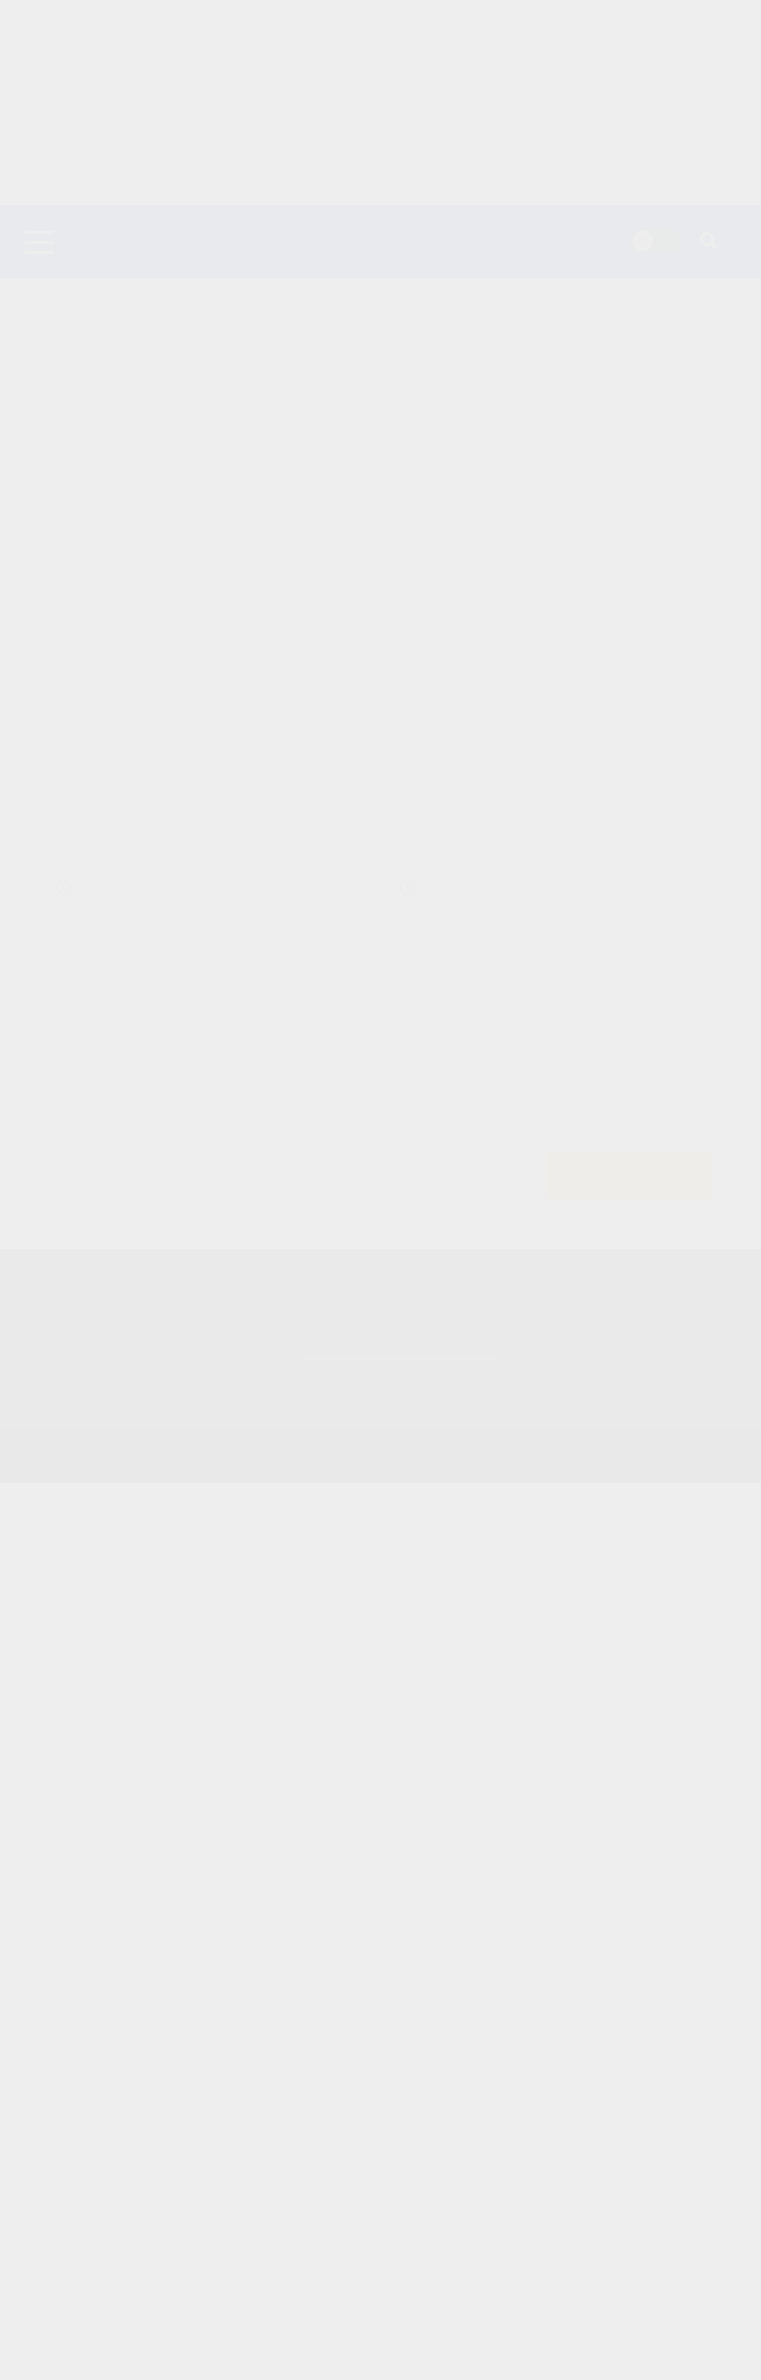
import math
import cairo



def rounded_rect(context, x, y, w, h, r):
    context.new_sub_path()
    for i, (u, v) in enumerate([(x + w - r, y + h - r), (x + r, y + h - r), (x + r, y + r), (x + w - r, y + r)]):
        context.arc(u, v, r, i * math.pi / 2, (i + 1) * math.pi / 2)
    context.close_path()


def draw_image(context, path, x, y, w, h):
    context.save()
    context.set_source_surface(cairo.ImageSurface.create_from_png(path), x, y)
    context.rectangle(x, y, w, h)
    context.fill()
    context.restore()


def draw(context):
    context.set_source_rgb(238 / 255, 238 / 255, 238 / 255)
    context.paint()
    context.set_source_rgb(233 / 255, 234 / 255, 237 / 255)
    context.rectangle(0, 205, 761, 73)
    context.fill()
    context.set_source_rgb(238 / 255, 238 / 255, 238 / 255)
    context.rectangle(25, 241, 29, 3)
    context.fill()
    context.rectangle(25, 231, 29, 3)
    context.fill()
    context.rectangle(25, 251, 29, 3)
    context.fill()
    context.set_source_rgb(233 / 255, 234 / 255, 234 / 255)
    rounded_rect(context, 630, 229, 50, 25, 12.5)
    context.fill()
    context.set_source_rgb(238 / 255, 238 / 255, 238 / 255)
    context.arc(643, 241, 10, 0, 2 * math.pi)
    context.fill()
    draw_image(context, "images/1.png", 635, 234, 15, 15)
    draw_image(context, "images/2.png", 700, 232, 18, 18)
    draw_image(context, "images/3.png", 56, 880, 15, 16)
    draw_image(context, "images/4.png", 400, 880, 15, 16)
    context.set_source_rgb(238 / 255, 237 / 255, 234 / 255)
    context.rectangle(546, 1151, 165, 48)
    context.fill()
    context.set_source_rgb(234 / 255, 234 / 255, 234 / 255)
    context.rectangle(0, 1249, 761, 179)
    context.fill()
    context.set_source_rgb(238 / 255, 237 / 255, 234 / 255)
    context.rectangle(301, 1358, 199, 1)
    context.fill()
    context.set_source_rgb(233 / 255, 233 / 255, 233 / 255)
    context.rectangle(0, 1428, 761, 55)
    context.fill()


surface = cairo.ImageSurface(cairo.Format.RGB24, 761, 2380)
context = cairo.Context(surface)
options = cairo.FontOptions()
options.set_hint_metrics(cairo.HintMetrics.OFF)
options.set_hint_style(cairo.HintStyle.NONE)
context.set_font_options(options)
context.set_miter_limit(4)
draw(context)
surface.write_to_png("out.png")
